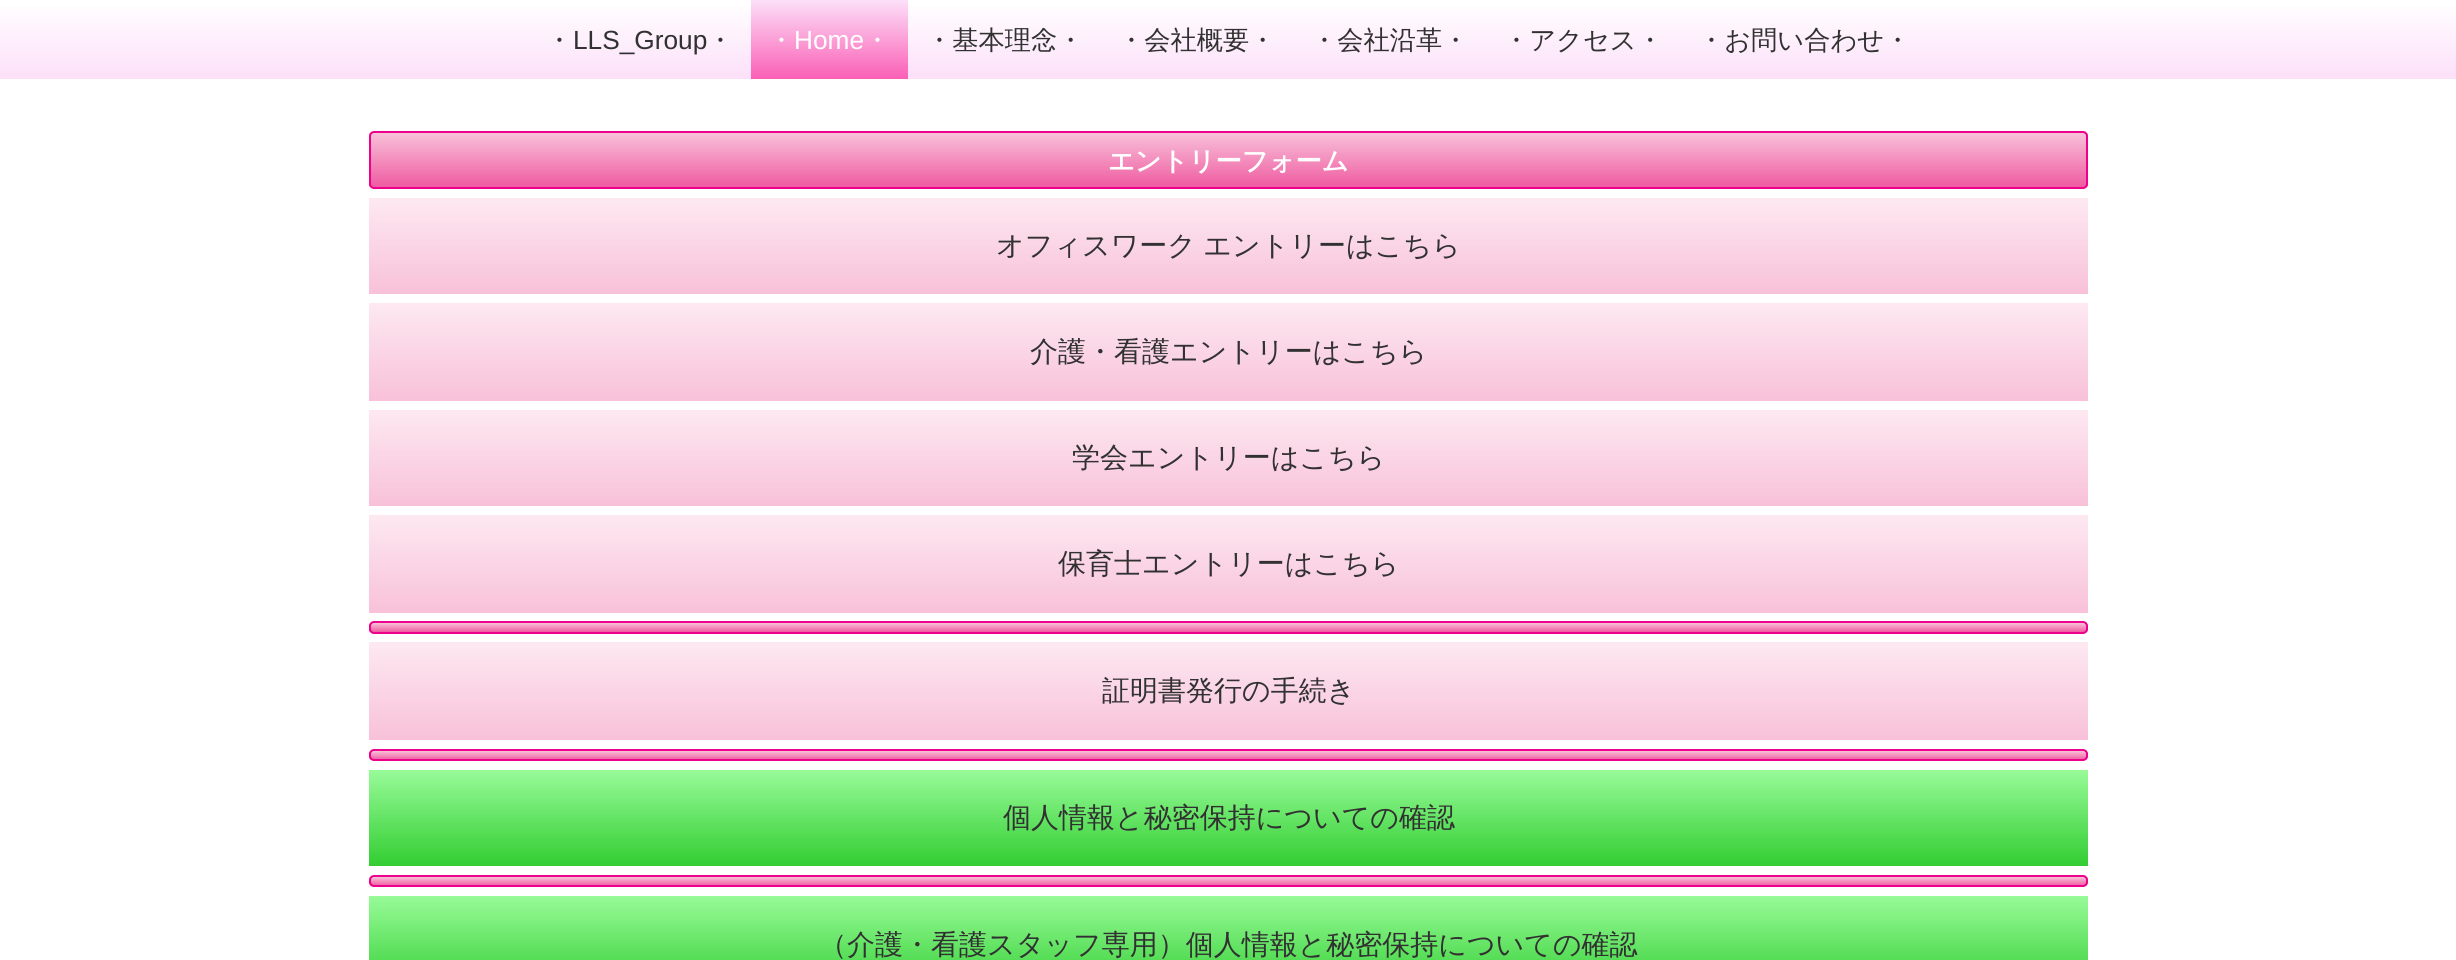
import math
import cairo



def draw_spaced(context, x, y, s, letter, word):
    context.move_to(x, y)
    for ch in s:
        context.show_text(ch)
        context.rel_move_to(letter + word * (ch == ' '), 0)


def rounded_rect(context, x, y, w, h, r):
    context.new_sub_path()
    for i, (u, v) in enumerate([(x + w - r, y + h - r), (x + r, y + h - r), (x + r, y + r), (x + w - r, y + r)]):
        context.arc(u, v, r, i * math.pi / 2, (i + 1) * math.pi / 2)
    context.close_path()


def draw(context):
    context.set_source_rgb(1, 1, 1)
    context.paint()
    gradient = cairo.LinearGradient(1229, 0, 1229, 79)
    gradient.add_color_stop_rgba(0, 1, 1, 1, 1)
    gradient.add_color_stop_rgba(1, 252 / 255, 224 / 255, 249 / 255, 1)
    context.set_source(gradient)
    context.rectangle(0, 6, 2456, 73)
    context.fill()
    gradient = cairo.LinearGradient(830, 0, 830, 79)
    gradient.add_color_stop_rgba(0, 252 / 255, 224 / 255, 249 / 255, 1)
    gradient.add_color_stop_rgba(1, 250 / 255, 95 / 255, 181 / 255, 1)
    context.set_source(gradient)
    context.rectangle(751, 0, 157, 79)
    context.fill()
    context.save()
    rounded_rect(context, 369, 131, 1719, 58, 5)
    context.clip()
    gradient = cairo.LinearGradient(1229, 133, 1229, 187)
    gradient.add_color_stop_rgba(0, 248 / 255, 193 / 255, 217 / 255, 1)
    gradient.add_color_stop_rgba(1, 239 / 255, 91 / 255, 161 / 255, 1)
    context.set_source(gradient)
    context.rectangle(369, 133, 1719, 54)
    context.fill()
    context.restore()
    rounded_rect(context, 370, 132, 1717, 56, 4)
    context.set_source_rgb(236 / 255, 0, 140 / 255)
    context.stroke()
    gradient = cairo.LinearGradient(1229, 198, 1229, 294)
    gradient.add_color_stop_rgba(0, 253 / 255, 233 / 255, 241 / 255, 1)
    gradient.add_color_stop_rgba(1, 248 / 255, 193 / 255, 217 / 255, 1)
    context.set_source(gradient)
    context.rectangle(369, 198, 1719, 96)
    context.fill()
    gradient = cairo.LinearGradient(1229, 303, 1229, 401)
    gradient.add_color_stop_rgba(0, 253 / 255, 233 / 255, 241 / 255, 1)
    gradient.add_color_stop_rgba(1, 248 / 255, 193 / 255, 217 / 255, 1)
    context.set_source(gradient)
    context.rectangle(369, 303, 1719, 98)
    context.fill()
    gradient = cairo.LinearGradient(1229, 409, 1229, 506)
    gradient.add_color_stop_rgba(0, 253 / 255, 233 / 255, 241 / 255, 1)
    gradient.add_color_stop_rgba(1, 248 / 255, 193 / 255, 217 / 255, 1)
    context.set_source(gradient)
    context.rectangle(369, 410, 1719, 96)
    context.fill()
    gradient = cairo.LinearGradient(1229, 514, 1229, 613)
    gradient.add_color_stop_rgba(0, 253 / 255, 233 / 255, 241 / 255, 1)
    gradient.add_color_stop_rgba(1, 248 / 255, 193 / 255, 217 / 255, 1)
    context.set_source(gradient)
    context.rectangle(369, 515, 1719, 98)
    context.fill()
    context.save()
    rounded_rect(context, 369, 621, 1719, 13, 5)
    context.clip()
    gradient = cairo.LinearGradient(1229, 623, 1229, 632)
    gradient.add_color_stop_rgba(0, 248 / 255, 193 / 255, 217 / 255, 1)
    gradient.add_color_stop_rgba(1, 239 / 255, 91 / 255, 161 / 255, 1)
    context.set_source(gradient)
    context.rectangle(369, 623, 1719, 9)
    context.fill()
    context.restore()
    rounded_rect(context, 370, 622, 1717, 11, 4)
    context.set_source_rgb(236 / 255, 0, 140 / 255)
    context.stroke()
    gradient = cairo.LinearGradient(1229, 642, 1229, 740)
    gradient.add_color_stop_rgba(0, 253 / 255, 233 / 255, 241 / 255, 1)
    gradient.add_color_stop_rgba(1, 248 / 255, 193 / 255, 217 / 255, 1)
    context.set_source(gradient)
    context.rectangle(369, 642, 1719, 98)
    context.fill()
    context.save()
    rounded_rect(context, 369, 749, 1719, 12, 5)
    context.clip()
    gradient = cairo.LinearGradient(1229, 751, 1229, 760)
    gradient.add_color_stop_rgba(0, 248 / 255, 193 / 255, 217 / 255, 1)
    gradient.add_color_stop_rgba(1, 239 / 255, 91 / 255, 161 / 255, 1)
    context.set_source(gradient)
    context.rectangle(369, 751, 1719, 9)
    context.fill()
    context.restore()
    rounded_rect(context, 370, 750, 1717, 10, 4)
    context.set_source_rgb(236 / 255, 0, 140 / 255)
    context.stroke()
    gradient = cairo.LinearGradient(1229, 770, 1229, 866)
    gradient.add_color_stop_rgba(0, 152 / 255, 251 / 255, 152 / 255, 1)
    gradient.add_color_stop_rgba(1, 50 / 255, 205 / 255, 50 / 255, 1)
    context.set_source(gradient)
    context.rectangle(369, 770, 1719, 96)
    context.fill()
    context.save()
    rounded_rect(context, 369, 875, 1719, 12, 5)
    context.clip()
    gradient = cairo.LinearGradient(1229, 877, 1229, 886)
    gradient.add_color_stop_rgba(0, 248 / 255, 193 / 255, 217 / 255, 1)
    gradient.add_color_stop_rgba(1, 239 / 255, 91 / 255, 161 / 255, 1)
    context.set_source(gradient)
    context.rectangle(369, 877, 1719, 9)
    context.fill()
    context.restore()
    rounded_rect(context, 370, 876, 1717, 10, 4)
    context.set_source_rgb(236 / 255, 0, 140 / 255)
    context.stroke()
    gradient = cairo.LinearGradient(1229, 896, 1229, 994)
    gradient.add_color_stop_rgba(0, 152 / 255, 251 / 255, 152 / 255, 1)
    gradient.add_color_stop_rgba(1, 50 / 255, 205 / 255, 50 / 255, 1)
    context.set_source(gradient)
    context.rectangle(369, 896, 1719, 64)
    context.fill()
    context.select_font_face("WenQuanYi Zen Hei Medium")
    context.set_font_size(26.25)
    context.set_source_rgb(49 / 255, 49 / 255, 49 / 255)
    context.move_to(546, 49)
    context.show_text("・")
    context.select_font_face("Liberation Sans")
    context.move_to(573, 49)
    context.show_text("LLS_Group")
    context.select_font_face("WenQuanYi Zen Hei Medium")
    context.move_to(707, 49)
    context.show_text("・")
    context.set_source_rgb(1, 1, 1)
    context.move_to(768, 49)
    context.show_text("・")
    context.select_font_face("Liberation Sans")
    context.move_to(794, 49)
    context.show_text("Home")
    context.select_font_face("WenQuanYi Zen Hei Medium")
    context.move_to(864, 49)
    context.show_text("・")
    context.set_source_rgb(49 / 255, 49 / 255, 49 / 255)
    context.move_to(926, 49)
    context.show_text("・基本理念・")
    context.move_to(1118, 49)
    context.show_text("・会社概要・")
    context.move_to(1311, 49)
    context.show_text("・会社沿革・")
    context.move_to(1503, 49)
    context.show_text("・アクセス・")
    context.move_to(1698, 49)
    context.show_text("・お問い合わせ・")
    context.select_font_face("WenQuanYi Zen Hei", cairo.FontSlant.NORMAL, cairo.FontWeight.BOLD)
    context.set_source_rgb(1, 1, 1)
    context.move_to(1108, 170)
    context.show_text("エントリーフォーム")
    context.select_font_face("WenQuanYi Zen Hei Medium")
    context.set_font_size(28)
    context.set_source_rgb(49 / 255, 49 / 255, 49 / 255)
    draw_spaced(context, 996, 255, "オフィスワーク エントリーはこちら", 0, -1)
    context.move_to(1030, 361)
    context.show_text("介護・看護エントリーはこちら")
    context.move_to(1072, 467)
    context.show_text("学会エントリーはこちら")
    context.move_to(1058, 573)
    context.show_text("保育士エントリーはこちら")
    context.move_to(1102, 700)
    context.show_text("証明書発行の手続き")
    context.move_to(1003, 827)
    context.show_text("個人情報と秘密保持についての確認")
    context.move_to(819, 954)
    context.show_text("（介護・看護スタッフ専用）個人情報と秘密保持についての確認")


surface = cairo.ImageSurface(cairo.Format.RGB24, 2456, 960)
context = cairo.Context(surface)
options = cairo.FontOptions()
options.set_hint_metrics(cairo.HintMetrics.OFF)
options.set_hint_style(cairo.HintStyle.NONE)
context.set_font_options(options)
context.set_miter_limit(4)
draw(context)
surface.write_to_png("out.png")
